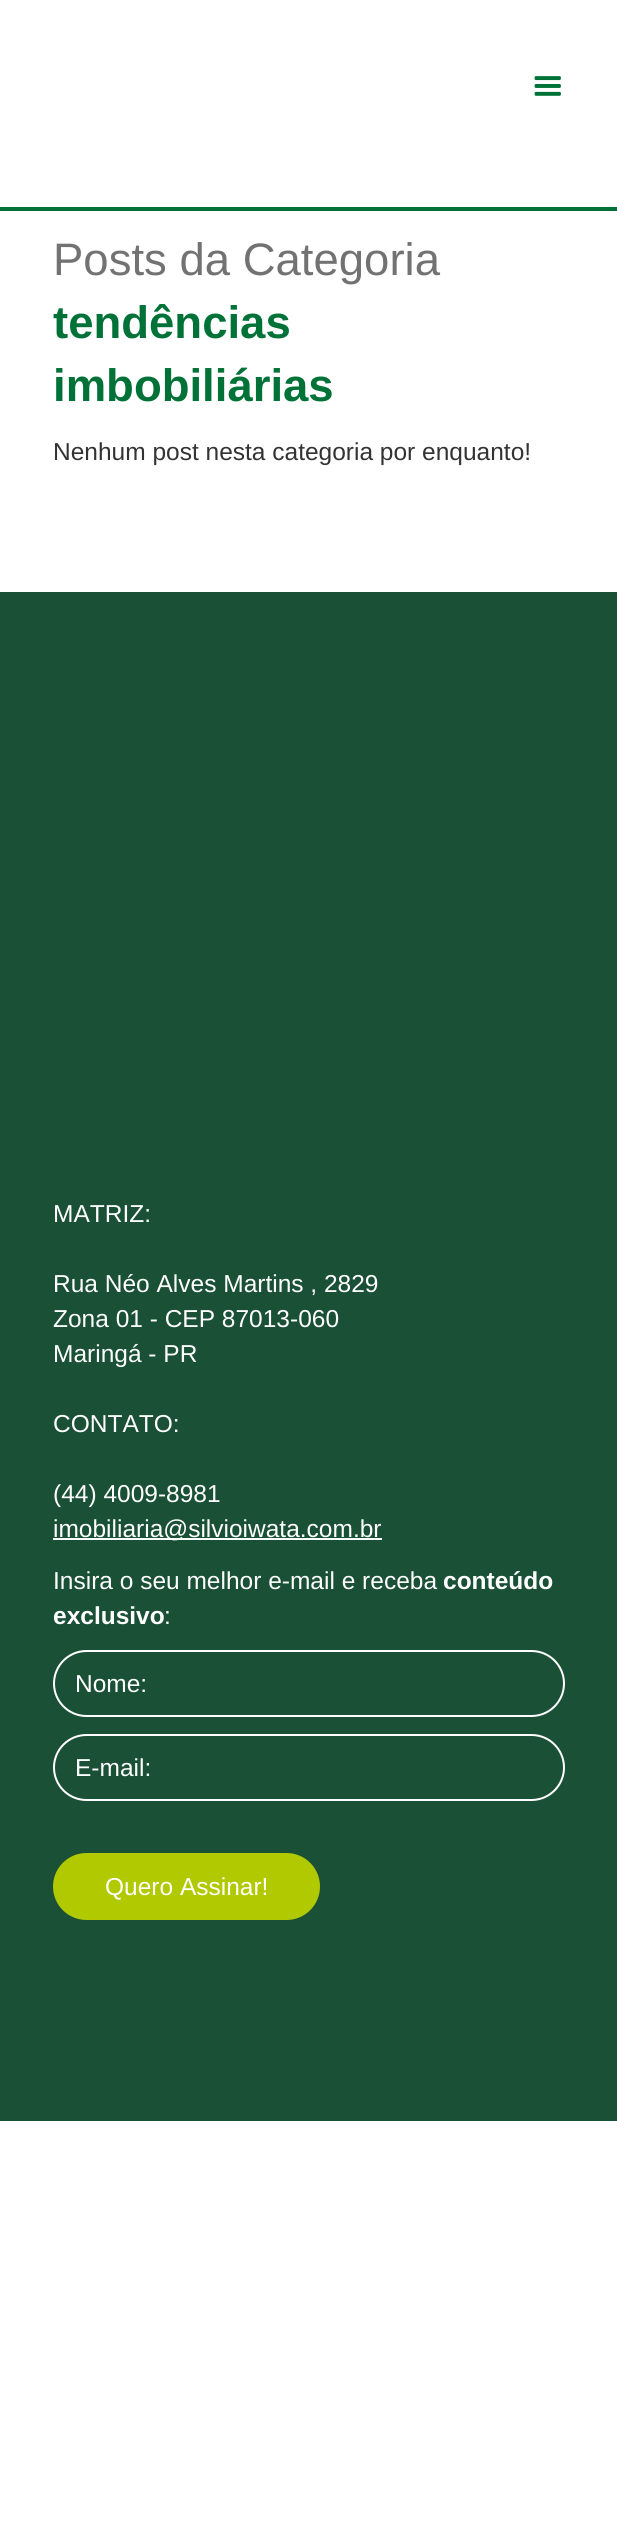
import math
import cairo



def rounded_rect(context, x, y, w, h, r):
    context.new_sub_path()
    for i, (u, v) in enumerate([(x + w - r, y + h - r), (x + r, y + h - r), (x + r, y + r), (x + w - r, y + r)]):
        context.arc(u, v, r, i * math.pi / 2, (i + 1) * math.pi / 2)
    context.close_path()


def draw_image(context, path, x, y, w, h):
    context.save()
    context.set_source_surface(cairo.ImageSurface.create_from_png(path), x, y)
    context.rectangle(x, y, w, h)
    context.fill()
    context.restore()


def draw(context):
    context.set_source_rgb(1, 1, 1)
    context.paint()
    context.set_source_rgb(0, 114 / 255, 55 / 255)
    context.rectangle(0, 207, 617, 4)
    context.fill()
    draw_image(context, "images/1.png", 534, 76, 27, 20)
    context.set_source_rgb(26 / 255, 80 / 255, 54 / 255)
    context.rectangle(0, 592, 617, 1529)
    context.fill()
    context.set_source_rgb(1, 1, 1)
    context.rectangle(53, 1538, 329, 2)
    context.fill()
    rounded_rect(context, 54, 1651, 510, 65, 32.5)
    context.stroke()
    rounded_rect(context, 54, 1735, 510, 65, 32.5)
    context.stroke()
    context.set_source_rgb(177 / 255, 201 / 255, 0)
    rounded_rect(context, 53, 1853, 267, 67, 33.5)
    context.fill()
    context.select_font_face("Liberation Sans")
    context.set_font_size(45.5)
    context.set_source_rgb(114 / 255, 114 / 255, 114 / 255)
    context.move_to(53, 275)
    context.show_text("Posts da Categoria")
    context.select_font_face("Liberation Sans", cairo.FontSlant.NORMAL, cairo.FontWeight.BOLD)
    context.set_source_rgb(0, 114 / 255, 55 / 255)
    context.move_to(53, 338)
    context.show_text("tendências")
    context.move_to(53, 401)
    context.show_text("imbobiliárias")
    context.select_font_face("Liberation Sans")
    context.set_font_size(24.5)
    context.set_source_rgb(51 / 255, 51 / 255, 51 / 255)
    context.move_to(53, 460)
    context.show_text("Nenhum post nesta categoria por enquanto!")
    context.set_source_rgb(1, 1, 1)
    context.move_to(53, 1222)
    context.show_text("MATRIZ:")
    context.move_to(53, 1292)
    context.show_text("Rua Néo Alves Martins , 2829")
    context.move_to(53, 1327)
    context.show_text("Zona 01 - CEP 87013-060")
    context.move_to(53, 1362)
    context.show_text("Maringá - PR")
    context.move_to(53, 1432)
    context.show_text("CONTATO:")
    context.move_to(53, 1502)
    context.show_text("(44) 4009-8981")
    context.move_to(53, 1537)
    context.show_text("imobiliaria@silvioiwata.com.br")
    context.move_to(53, 1589)
    context.show_text("Insira o seu melhor e-mail e receba")
    context.select_font_face("Liberation Sans", cairo.FontSlant.NORMAL, cairo.FontWeight.BOLD)
    context.move_to(443, 1589)
    context.show_text("conteúdo")
    context.move_to(53, 1624)
    context.show_text("exclusivo")
    context.select_font_face("Liberation Sans")
    context.move_to(164, 1624)
    context.show_text(":")
    context.move_to(75, 1692)
    context.show_text("Nome:")
    context.move_to(75, 1776)
    context.show_text("E-mail:")
    context.move_to(105, 1895)
    context.show_text("Quero Assinar!")


surface = cairo.ImageSurface(cairo.Format.RGB24, 617, 2521)
context = cairo.Context(surface)
options = cairo.FontOptions()
options.set_hint_metrics(cairo.HintMetrics.OFF)
options.set_hint_style(cairo.HintStyle.NONE)
context.set_font_options(options)
context.set_miter_limit(4)
draw(context)
surface.write_to_png("out.png")
